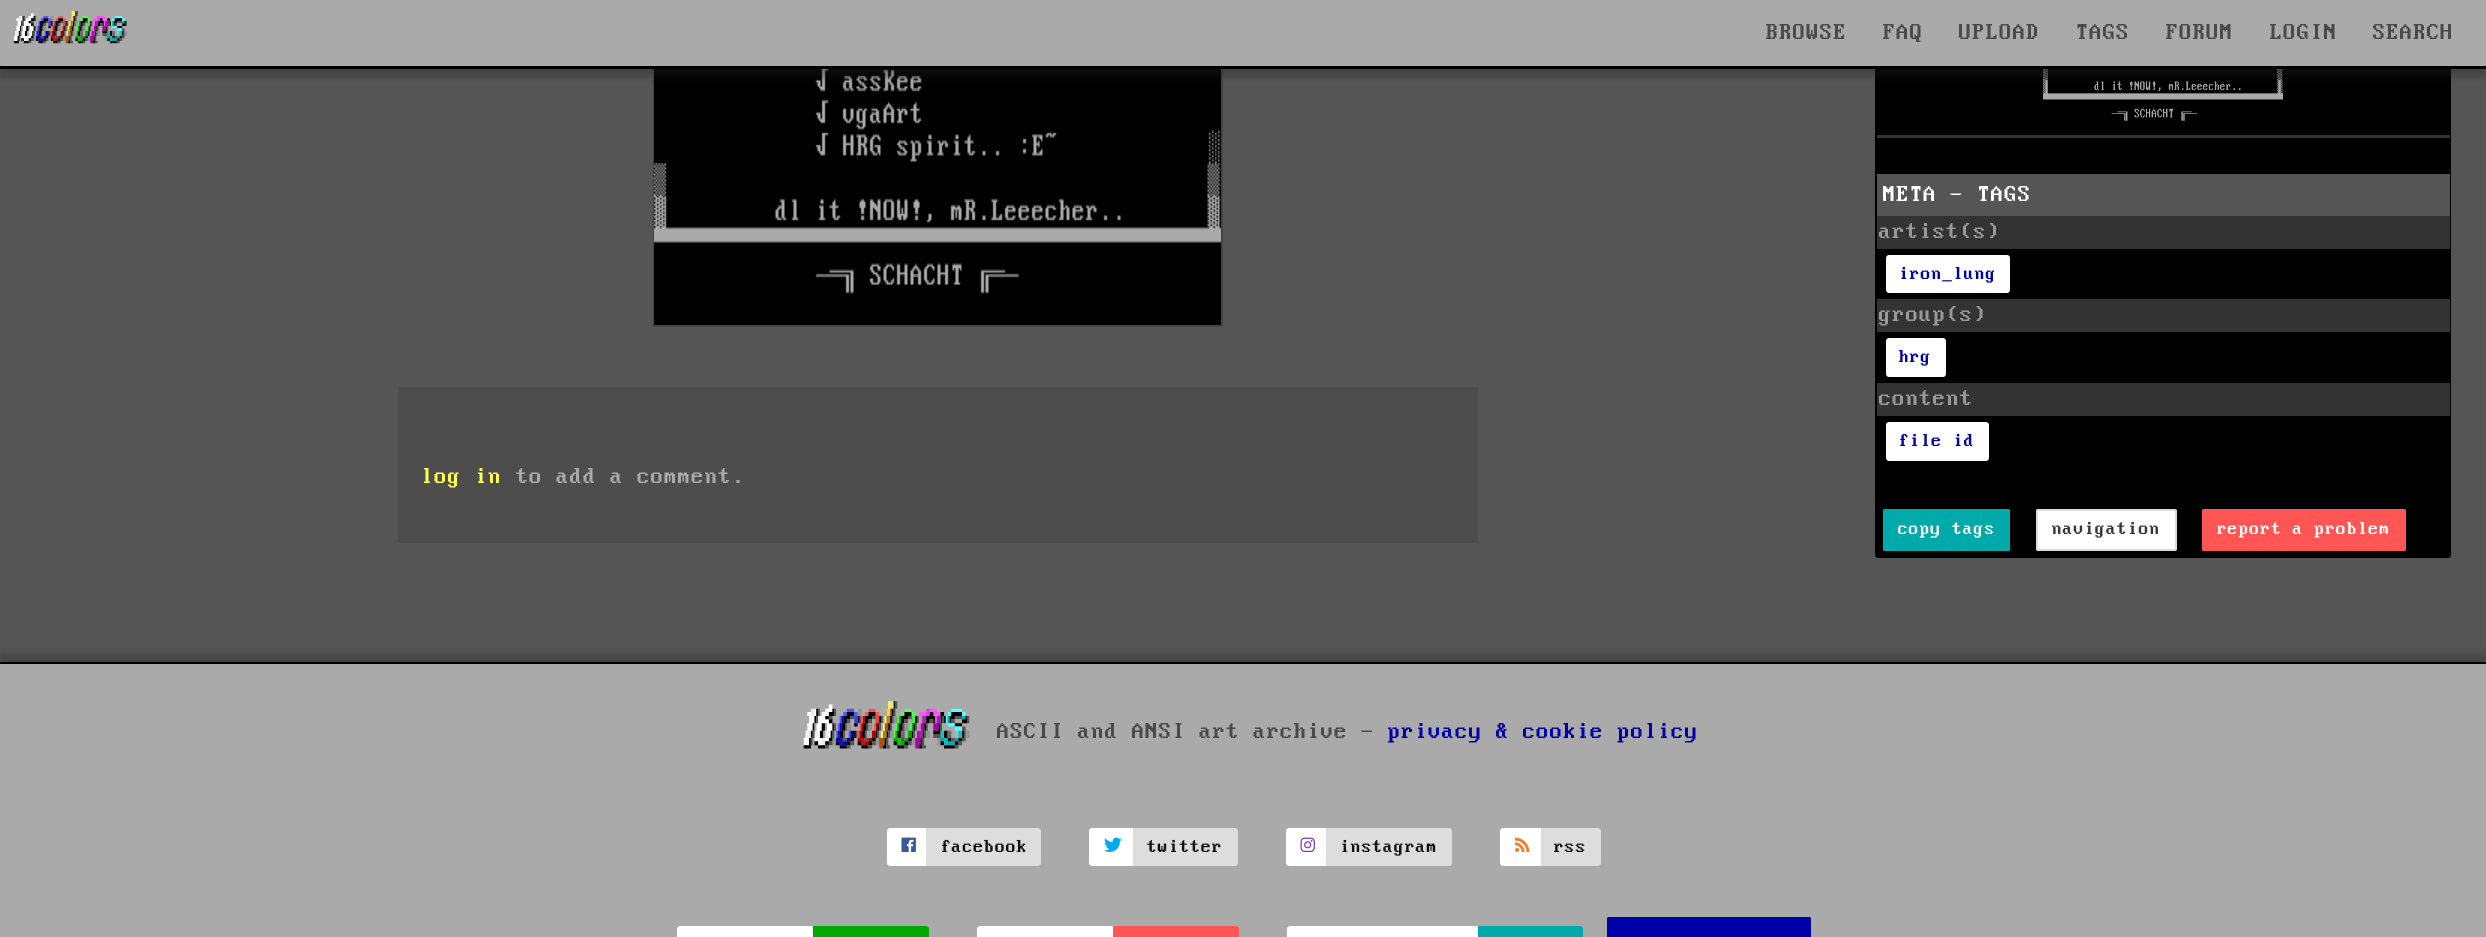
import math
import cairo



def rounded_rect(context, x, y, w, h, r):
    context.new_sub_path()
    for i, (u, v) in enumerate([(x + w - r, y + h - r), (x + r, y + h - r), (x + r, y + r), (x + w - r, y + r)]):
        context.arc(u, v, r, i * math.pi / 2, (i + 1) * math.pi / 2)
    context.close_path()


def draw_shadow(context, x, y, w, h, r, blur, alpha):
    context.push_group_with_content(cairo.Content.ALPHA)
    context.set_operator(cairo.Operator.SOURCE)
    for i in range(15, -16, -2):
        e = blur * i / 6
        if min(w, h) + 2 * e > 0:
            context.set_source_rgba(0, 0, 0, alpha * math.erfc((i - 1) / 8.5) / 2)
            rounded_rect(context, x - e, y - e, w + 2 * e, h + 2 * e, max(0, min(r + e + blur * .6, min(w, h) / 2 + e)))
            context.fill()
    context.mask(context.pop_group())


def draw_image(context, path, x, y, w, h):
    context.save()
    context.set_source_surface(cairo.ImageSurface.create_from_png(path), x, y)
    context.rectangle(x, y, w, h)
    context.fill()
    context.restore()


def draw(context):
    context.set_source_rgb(85 / 255, 85 / 255, 85 / 255)
    context.paint()
    context.rectangle(654, -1, 568, 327)
    context.set_source_rgb(68 / 255, 68 / 255, 68 / 255)
    context.stroke()
    draw_image(context, "images/2.png", 654, 69, 567, 256)
    context.set_source_rgb(0, 0, 0)
    rounded_rect(context, 1876, -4, 574, 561, 2)
    context.fill_preserve()
    context.stroke()
    draw_image(context, "images/3.png", 2043, 69, 240, 52)
    context.set_source_rgb(34 / 255, 34 / 255, 34 / 255)
    draw_shadow(context, 0, 8, 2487, 69, 0, 4, 0.35)
    context.set_source_rgb(170 / 255, 170 / 255, 170 / 255)
    context.rectangle(0, 0, 2486, 66)
    context.fill()
    context.set_source_rgb(0, 0, 0)
    context.rectangle(0, 66, 2486, 3)
    context.fill()
    draw_image(context, "images/1.png", 13, 11, 115, 33)
    context.set_source_rgb(77 / 255, 77 / 255, 77 / 255)
    context.rectangle(398, 387, 1080, 156)
    context.fill()
    context.set_source_rgb(51 / 255, 51 / 255, 51 / 255)
    context.rectangle(1877, 135, 573, 3)
    context.fill()
    context.set_source_rgb(85 / 255, 85 / 255, 85 / 255)
    context.rectangle(1877, 174, 573, 42)
    context.fill()
    context.set_source_rgb(51 / 255, 51 / 255, 51 / 255)
    context.rectangle(1877, 216, 573, 33)
    context.fill()
    context.set_source_rgb(1, 1, 1)
    rounded_rect(context, 1886, 255, 124, 38, 3)
    context.fill()
    context.set_source_rgb(51 / 255, 51 / 255, 51 / 255)
    context.rectangle(1877, 299, 573, 33)
    context.fill()
    context.set_source_rgb(1, 1, 1)
    rounded_rect(context, 1886, 338, 60, 39, 3)
    context.fill()
    context.set_source_rgb(51 / 255, 51 / 255, 51 / 255)
    context.rectangle(1877, 383, 573, 33)
    context.fill()
    context.set_source_rgb(1, 1, 1)
    rounded_rect(context, 1886, 422, 103, 39, 3)
    context.fill()
    context.set_source_rgb(0, 170 / 255, 170 / 255)
    rounded_rect(context, 1883, 509, 127, 42, 1.5)
    context.fill()
    context.set_source_rgb(1, 1, 1)
    rounded_rect(context, 2037, 510, 139, 40, 0.5)
    context.fill_preserve()
    context.set_source_rgb(219 / 255, 219 / 255, 219 / 255)
    context.stroke()
    context.set_source_rgb(1, 85 / 255, 85 / 255)
    rounded_rect(context, 2202, 509, 204, 42, 1.5)
    context.fill()
    context.set_source_rgb(34 / 255, 34 / 255, 34 / 255)
    draw_shadow(context, 0, 654, 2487, 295, 0, 4, 0.35)
    context.set_source_rgb(170 / 255, 170 / 255, 170 / 255)
    context.rectangle(0, 664, 2486, 273)
    context.fill()
    context.set_source_rgb(0, 0, 0)
    context.rectangle(0, 662, 2486, 2)
    context.fill()
    draw_image(context, "images/4.png", 803, 701, 167, 48)
    context.set_source_rgb(1, 1, 1)
    context.new_path()
    context.move_to(890, 828)
    context.line_to(926, 828)
    context.line_to(926, 866)
    context.line_to(890, 866)
    context.curve_to(888.5, 866, 887, 864.5, 887, 863)
    context.line_to(887, 831)
    context.curve_to(887, 829.5, 888.5, 828, 890, 828)
    context.close_path()
    context.fill()
    draw_image(context, "images/5.png", 901, 837, 15, 15)
    context.set_source_rgb(221 / 255, 221 / 255, 221 / 255)
    context.new_path()
    context.move_to(926, 828)
    context.line_to(1038, 828)
    context.curve_to(1039.5, 828, 1041, 829.5, 1041, 831)
    context.line_to(1041, 863)
    context.curve_to(1041, 864.5, 1039.5, 866, 1038, 866)
    context.line_to(926, 866)
    context.close_path()
    context.fill()
    context.set_source_rgb(1, 1, 1)
    context.new_path()
    context.move_to(1092, 828)
    context.line_to(1133, 828)
    context.line_to(1133, 866)
    context.line_to(1092, 866)
    context.curve_to(1090.5, 866, 1089, 864.5, 1089, 863)
    context.line_to(1089, 831)
    context.curve_to(1089, 829.5, 1090.5, 828, 1092, 828)
    context.close_path()
    context.fill()
    draw_image(context, "images/6.png", 1104, 837, 18, 15)
    context.set_source_rgb(221 / 255, 221 / 255, 221 / 255)
    context.new_path()
    context.move_to(1133, 828)
    context.line_to(1235, 828)
    context.curve_to(1236.5, 828, 1238, 829.5, 1238, 831)
    context.line_to(1238, 863)
    context.curve_to(1238, 864.5, 1236.5, 866, 1235, 866)
    context.line_to(1133, 866)
    context.close_path()
    context.fill()
    context.set_source_rgb(1, 1, 1)
    context.new_path()
    context.move_to(1289, 828)
    context.line_to(1326, 828)
    context.line_to(1326, 866)
    context.line_to(1289, 866)
    context.curve_to(1287.5, 866, 1286, 864.5, 1286, 863)
    context.line_to(1286, 831)
    context.curve_to(1286, 829.5, 1287.5, 828, 1289, 828)
    context.close_path()
    context.fill()
    draw_image(context, "images/7.png", 1300, 837, 15, 15)
    context.set_source_rgb(221 / 255, 221 / 255, 221 / 255)
    context.new_path()
    context.move_to(1326, 828)
    context.line_to(1449, 828)
    context.curve_to(1450.5, 828, 1452, 829.5, 1452, 831)
    context.line_to(1452, 863)
    context.curve_to(1452, 864.5, 1450.5, 866, 1449, 866)
    context.line_to(1326, 866)
    context.close_path()
    context.fill()
    context.set_source_rgb(1, 1, 1)
    context.new_path()
    context.move_to(1503, 828)
    context.line_to(1541, 828)
    context.line_to(1541, 866)
    context.line_to(1503, 866)
    context.curve_to(1501.5, 866, 1500, 864.5, 1500, 863)
    context.line_to(1500, 831)
    context.curve_to(1500, 829.5, 1501.5, 828, 1503, 828)
    context.close_path()
    context.fill()
    draw_image(context, "images/8.png", 1515, 837, 15, 15)
    context.set_source_rgb(221 / 255, 221 / 255, 221 / 255)
    context.new_path()
    context.move_to(1541, 828)
    context.line_to(1598, 828)
    context.curve_to(1599.5, 828, 1601, 829.5, 1601, 831)
    context.line_to(1601, 863)
    context.curve_to(1601, 864.5, 1599.5, 866, 1598, 866)
    context.line_to(1541, 866)
    context.close_path()
    context.fill()
    context.set_source_rgb(1, 1, 1)
    context.new_path()
    context.move_to(680, 926)
    context.line_to(813, 926)
    context.line_to(813, 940)
    context.line_to(680, 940)
    context.curve_to(678.5, 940, 677, 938.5, 677, 937)
    context.line_to(677, 929)
    context.curve_to(677, 927.5, 678.5, 926, 680, 926)
    context.close_path()
    context.fill()
    context.set_source_rgb(0, 170 / 255, 0)
    context.new_path()
    context.move_to(813, 926)
    context.line_to(926, 926)
    context.curve_to(927.5, 926, 929, 927.5, 929, 929)
    context.line_to(929, 937)
    context.curve_to(929, 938.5, 927.5, 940, 926, 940)
    context.line_to(813, 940)
    context.close_path()
    context.fill()
    context.set_source_rgb(1, 1, 1)
    context.new_path()
    context.move_to(980, 926)
    context.line_to(1113, 926)
    context.line_to(1113, 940)
    context.line_to(980, 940)
    context.curve_to(978.5, 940, 977, 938.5, 977, 937)
    context.line_to(977, 929)
    context.curve_to(977, 927.5, 978.5, 926, 980, 926)
    context.close_path()
    context.fill()
    context.set_source_rgb(1, 85 / 255, 85 / 255)
    context.new_path()
    context.move_to(1113, 926)
    context.line_to(1236, 926)
    context.curve_to(1237.5, 926, 1239, 927.5, 1239, 929)
    context.line_to(1239, 937)
    context.curve_to(1239, 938.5, 1237.5, 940, 1236, 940)
    context.line_to(1113, 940)
    context.close_path()
    context.fill()
    context.set_source_rgb(1, 1, 1)
    context.new_path()
    context.move_to(1290, 926)
    context.line_to(1478, 926)
    context.line_to(1478, 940)
    context.line_to(1290, 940)
    context.curve_to(1288.5, 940, 1287, 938.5, 1287, 937)
    context.line_to(1287, 929)
    context.curve_to(1287, 927.5, 1288.5, 926, 1290, 926)
    context.close_path()
    context.fill()
    context.set_source_rgb(0, 170 / 255, 170 / 255)
    context.new_path()
    context.move_to(1478, 926)
    context.line_to(1580, 926)
    context.curve_to(1581.5, 926, 1583, 927.5, 1583, 929)
    context.line_to(1583, 937)
    context.curve_to(1583, 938.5, 1581.5, 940, 1580, 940)
    context.line_to(1478, 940)
    context.close_path()
    context.fill()
    context.set_source_rgb(0, 0, 170 / 255)
    rounded_rect(context, 1607, 917, 204, 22, 1.5)
    context.fill()
    context.select_font_face("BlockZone")
    context.set_font_size(24)
    context.set_source_rgb(74 / 255, 74 / 255, 74 / 255)
    context.move_to(1766, 39)
    context.show_text("BROWSE")
    context.move_to(1883, 39)
    context.show_text("FAQ")
    context.move_to(1959, 39)
    context.show_text("UPLOAD")
    context.move_to(2076, 39)
    context.show_text("TAGS")
    context.move_to(2166, 39)
    context.show_text("FORUM")
    context.move_to(2270, 39)
    context.show_text("LOGIN")
    context.move_to(2373, 39)
    context.show_text("SEARCH")
    context.set_source_rgb(1, 1, 85 / 255)
    context.move_to(421, 483)
    context.show_text("log in")
    context.set_source_rgb(170 / 255, 170 / 255, 170 / 255)
    context.move_to(516, 483)
    context.show_text("to add a comment.")
    context.set_source_rgb(1, 1, 1)
    context.move_to(1883, 201)
    context.show_text("META - TAGS")
    context.set_source_rgb(153 / 255, 153 / 255, 153 / 255)
    context.move_to(1879, 238)
    context.show_text("artist(s)")
    context.set_font_size(19.25)
    context.set_source_rgb(0, 0, 170 / 255)
    context.move_to(1899, 279)
    context.show_text("iron_lung")
    context.set_font_size(24)
    context.set_source_rgb(153 / 255, 153 / 255, 153 / 255)
    context.move_to(1879, 321)
    context.show_text("group(s)")
    context.set_font_size(19.25)
    context.set_source_rgb(0, 0, 170 / 255)
    context.move_to(1899, 362)
    context.show_text("hrg")
    context.set_font_size(24)
    context.set_source_rgb(153 / 255, 153 / 255, 153 / 255)
    context.move_to(1879, 405)
    context.show_text("content")
    context.set_font_size(19.25)
    context.set_source_rgb(0, 0, 170 / 255)
    context.move_to(1899, 446)
    context.show_text("file id")
    context.set_source_rgb(1, 1, 1)
    context.move_to(1898, 534)
    context.show_text("copy tags")
    context.set_source_rgb(54 / 255, 54 / 255, 54 / 255)
    context.move_to(2052, 534)
    context.show_text("navigation")
    context.set_source_rgb(1, 1, 1)
    context.move_to(2217, 534)
    context.show_text("report a problem")
    context.set_font_size(24)
    context.set_source_rgb(74 / 255, 74 / 255, 74 / 255)
    context.move_to(997, 738)
    context.show_text("ASCII and ANSI art archive -")
    context.set_source_rgb(0, 0, 170 / 255)
    context.move_to(1388, 738)
    context.show_text("privacy & cookie policy")
    context.set_font_size(19.25)
    context.set_source_rgb(17 / 255, 17 / 255, 17 / 255)
    context.move_to(941, 852)
    context.show_text("facebook")
    context.move_to(1147, 852)
    context.show_text("twitter")
    context.move_to(1340, 852)
    context.show_text("instagram")
    context.move_to(1554, 852)
    context.show_text("rss")


surface = cairo.ImageSurface(cairo.Format.RGB24, 2486, 937)
context = cairo.Context(surface)
options = cairo.FontOptions()
options.set_hint_metrics(cairo.HintMetrics.OFF)
options.set_hint_style(cairo.HintStyle.NONE)
context.set_font_options(options)
context.set_miter_limit(4)
draw(context)
surface.write_to_png("out.png")
